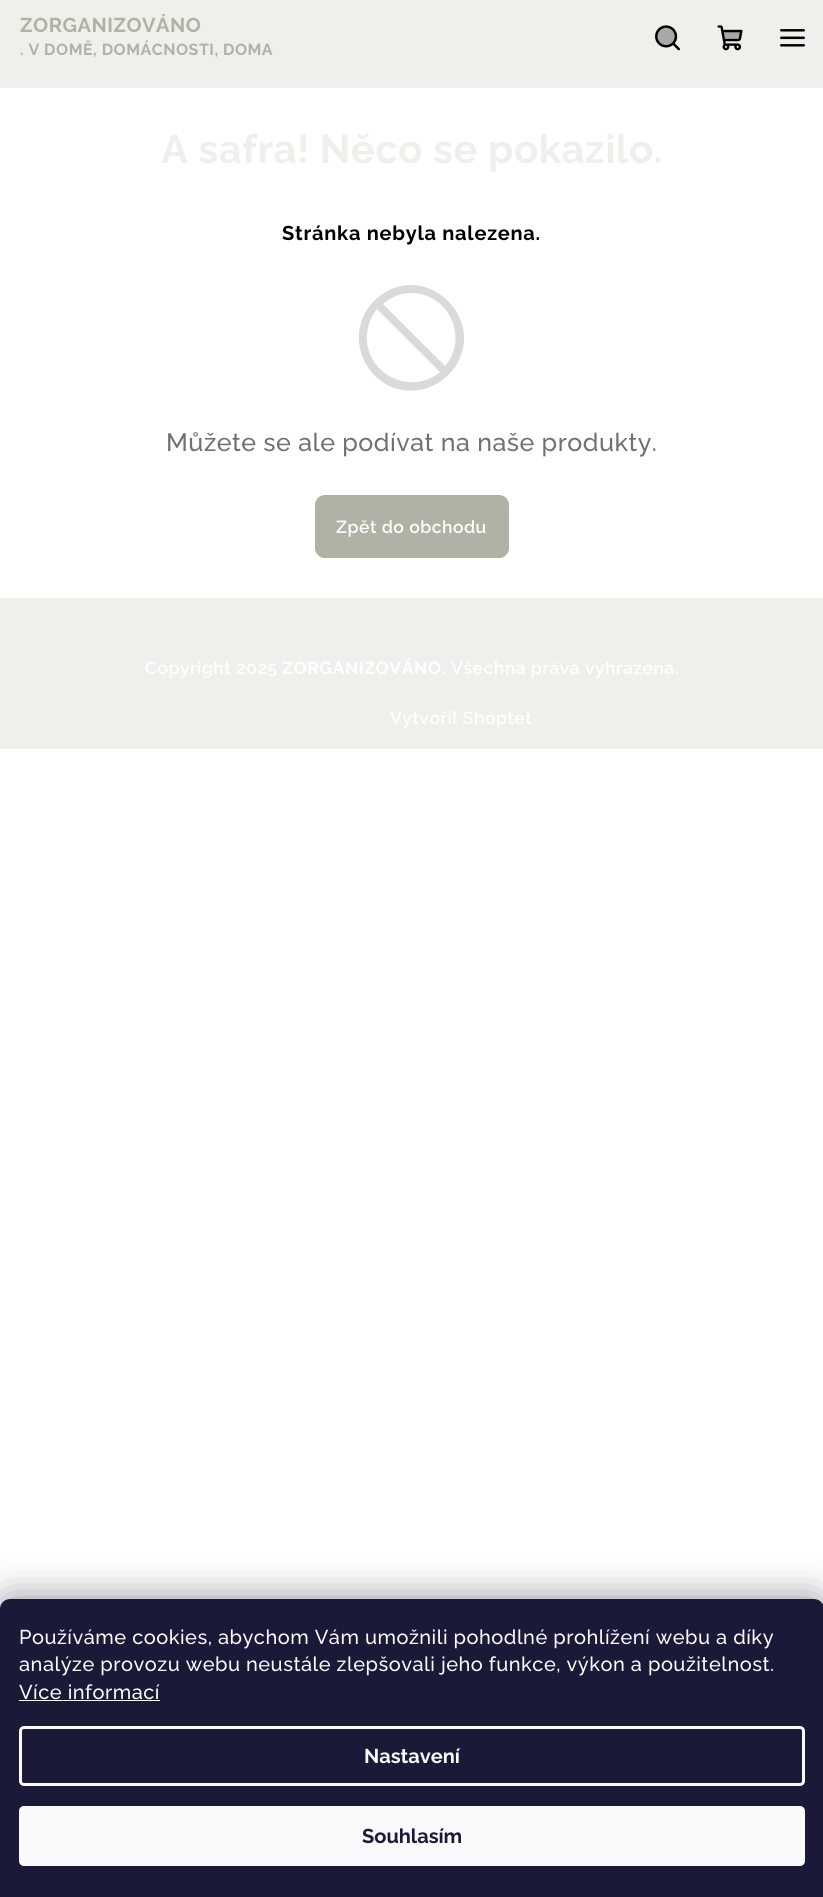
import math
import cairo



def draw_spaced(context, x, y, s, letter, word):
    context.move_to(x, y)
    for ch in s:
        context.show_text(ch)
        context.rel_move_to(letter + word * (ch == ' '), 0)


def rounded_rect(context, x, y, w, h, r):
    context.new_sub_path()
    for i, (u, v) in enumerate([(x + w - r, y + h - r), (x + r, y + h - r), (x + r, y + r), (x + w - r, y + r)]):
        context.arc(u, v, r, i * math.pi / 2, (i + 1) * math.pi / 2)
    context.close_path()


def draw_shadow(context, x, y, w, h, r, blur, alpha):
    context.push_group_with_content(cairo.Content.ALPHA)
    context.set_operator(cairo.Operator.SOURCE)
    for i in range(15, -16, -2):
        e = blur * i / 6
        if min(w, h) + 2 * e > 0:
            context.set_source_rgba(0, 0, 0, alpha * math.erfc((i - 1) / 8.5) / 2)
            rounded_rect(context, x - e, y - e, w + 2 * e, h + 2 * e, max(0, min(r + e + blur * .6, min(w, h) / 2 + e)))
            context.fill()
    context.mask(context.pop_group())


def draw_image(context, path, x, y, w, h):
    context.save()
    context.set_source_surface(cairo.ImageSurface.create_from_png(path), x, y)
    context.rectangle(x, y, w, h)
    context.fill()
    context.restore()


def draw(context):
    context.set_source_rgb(1, 1, 1)
    context.paint()
    context.set_source_rgb(239 / 255, 239 / 255, 236 / 255)
    context.rectangle(0, 0, 823, 88)
    context.fill()
    draw_image(context, "images/1.png", 655, 25, 25, 26)
    context.set_source_rgba(0, 0, 0, 0.3)
    context.new_path()
    context.move_to(666, 46.5)
    context.curve_to(679, 46.5, 679, 26.5, 666, 26.5)
    context.curve_to(653, 26.5, 653, 46.5, 666, 46.5)
    context.close_path()
    context.fill()
    draw_image(context, "images/2.png", 717, 25, 26, 26)
    context.rectangle(723, 32, 17, 7)
    context.fill()
    draw_image(context, "images/3.png", 780, 29, 25, 18)
    context.set_source_rgb(218 / 255, 218 / 255, 218 / 255)
    context.new_path()
    context.move_to(411, 285)
    context.curve_to(397, 285, 384, 291, 374, 301)
    context.curve_to(353, 322, 354, 356, 376, 377)
    context.curve_to(411, 409, 466, 381, 464, 335)
    context.curve_to(463, 323, 458, 312, 450, 303)
    context.curve_to(440, 292, 426, 285, 411, 285)
    context.close_path()
    context.move_to(411, 293)
    context.curve_to(449, 293, 469, 338, 445, 366)
    context.line_to(383, 304)
    context.curve_to(391, 297, 401, 293, 411, 293)
    context.close_path()
    context.move_to(377, 309)
    context.line_to(440, 372)
    context.curve_to(410, 397, 364, 373, 367, 334)
    context.curve_to(368, 325, 371, 316, 377, 309)
    context.close_path()
    context.fill()
    context.set_source_rgb(176 / 255, 178 / 255, 166 / 255)
    rounded_rect(context, 315.5, 495.5, 193, 62, 9.5)
    context.fill_preserve()
    context.set_line_width(1)
    context.stroke()
    context.set_source_rgb(239 / 255, 239 / 255, 236 / 255)
    context.rectangle(0, 598, 823, 151)
    context.fill()
    context.set_source_rgb(27 / 255, 25 / 255, 57 / 255)
    draw_shadow(context, 0, 1599, 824, 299, 10, 19, 0.5)
    context.set_source_rgb(26 / 255, 25 / 255, 55 / 255)
    context.new_path()
    context.move_to(10, 1599)
    context.line_to(814, 1599)
    context.curve_to(819.5, 1599, 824, 1603.5, 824, 1609)
    context.line_to(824, 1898)
    context.line_to(0, 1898)
    context.line_to(0, 1609)
    context.curve_to(0, 1603.5, 4.5, 1599, 10, 1599)
    context.close_path()
    context.fill()
    context.set_source_rgb(248 / 255, 250 / 255, 251 / 255)
    context.rectangle(19, 1700, 141, 1)
    context.fill()
    rounded_rect(context, 20.5, 1727.5, 783, 57, 3.5)
    context.set_line_width(3)
    context.stroke()
    rounded_rect(context, 19, 1806, 786, 60, 5)
    context.fill()
    context.save()
    context.rectangle(20, 14, 253, 24)
    context.clip()
    context.select_font_face("Raleway", cairo.FontSlant.NORMAL, cairo.FontWeight.BOLD)
    context.set_font_size(20)
    context.set_source_rgb(176 / 255, 178 / 255, 166 / 255)
    draw_spaced(context, 20, 32, "ZORGANIZOVÁNO", 0.5, 0)
    context.restore()
    context.select_font_face("Raleway", cairo.FontSlant.NORMAL, cairo.FontWeight.BOLD)
    context.set_font_size(16)
    context.set_source_rgb(176 / 255, 178 / 255, 166 / 255)
    draw_spaced(context, 20, 55, ". V DOMĚ, DOMÁCNOSTI, DOMA", 0.5, 0)
    context.set_font_size(40)
    context.set_source_rgb(239 / 255, 239 / 255, 236 / 255)
    draw_spaced(context, 161, 163, "A safra! Něco se pokazilo.", 0.5, 0)
    context.set_font_size(20)
    context.set_source_rgb(0, 0, 0)
    draw_spaced(context, 282, 240, "Stránka nebyla nalezena.", 0.75, 0)
    context.select_font_face("Raleway Medium")
    context.set_font_size(25)
    context.set_source_rgb(112 / 255, 112 / 255, 112 / 255)
    draw_spaced(context, 166, 451, "Můžete se ale podívat na naše produkty.", 0.5, 0)
    context.select_font_face("Raleway SemiBold")
    context.set_font_size(17.5)
    context.set_source_rgb(1, 1, 1)
    draw_spaced(context, 336, 533, "Zpět do obchodu", 0.5, 0)
    draw_spaced(context, 145, 674, "Copyright 2025", 0.5, 0)
    context.select_font_face("Raleway", cairo.FontSlant.NORMAL, cairo.FontWeight.BOLD)
    draw_spaced(context, 282, 674, "ZORGANIZOVÁNO", 0.5, 0)
    context.select_font_face("Raleway SemiBold")
    draw_spaced(context, 442, 674, ". Všechna práva vyhrazena.", 0.5, 0)
    draw_spaced(context, 390, 724, "Vytvořil Shoptet", 0.5, 0)
    context.select_font_face("Raleway Medium")
    context.set_font_size(20)
    context.set_source_rgb(248 / 255, 250 / 255, 251 / 255)
    draw_spaced(context, 19, 1644, "Používáme cookies, abychom Vám umožnili pohodlné prohlížení webu a díky", 0.5, 0)
    draw_spaced(context, 19, 1671, "analýze provozu webu neustále zlepšovali jeho funkce, výkon a použitelnost.", 0.5, 0)
    draw_spaced(context, 19, 1699, "Více informací", 0.5, 0)
    context.select_font_face("Raleway", cairo.FontSlant.NORMAL, cairo.FontWeight.BOLD)
    context.move_to(364, 1763)
    context.show_text("Nastavení")
    context.set_source_rgb(26 / 255, 25 / 255, 55 / 255)
    context.move_to(362, 1843)
    context.show_text("Souhlasím")


surface = cairo.ImageSurface(cairo.Format.RGB24, 823, 1897)
context = cairo.Context(surface)
options = cairo.FontOptions()
options.set_hint_metrics(cairo.HintMetrics.OFF)
options.set_hint_style(cairo.HintStyle.NONE)
context.set_font_options(options)
context.set_miter_limit(4)
draw(context)
surface.write_to_png("out.png")
